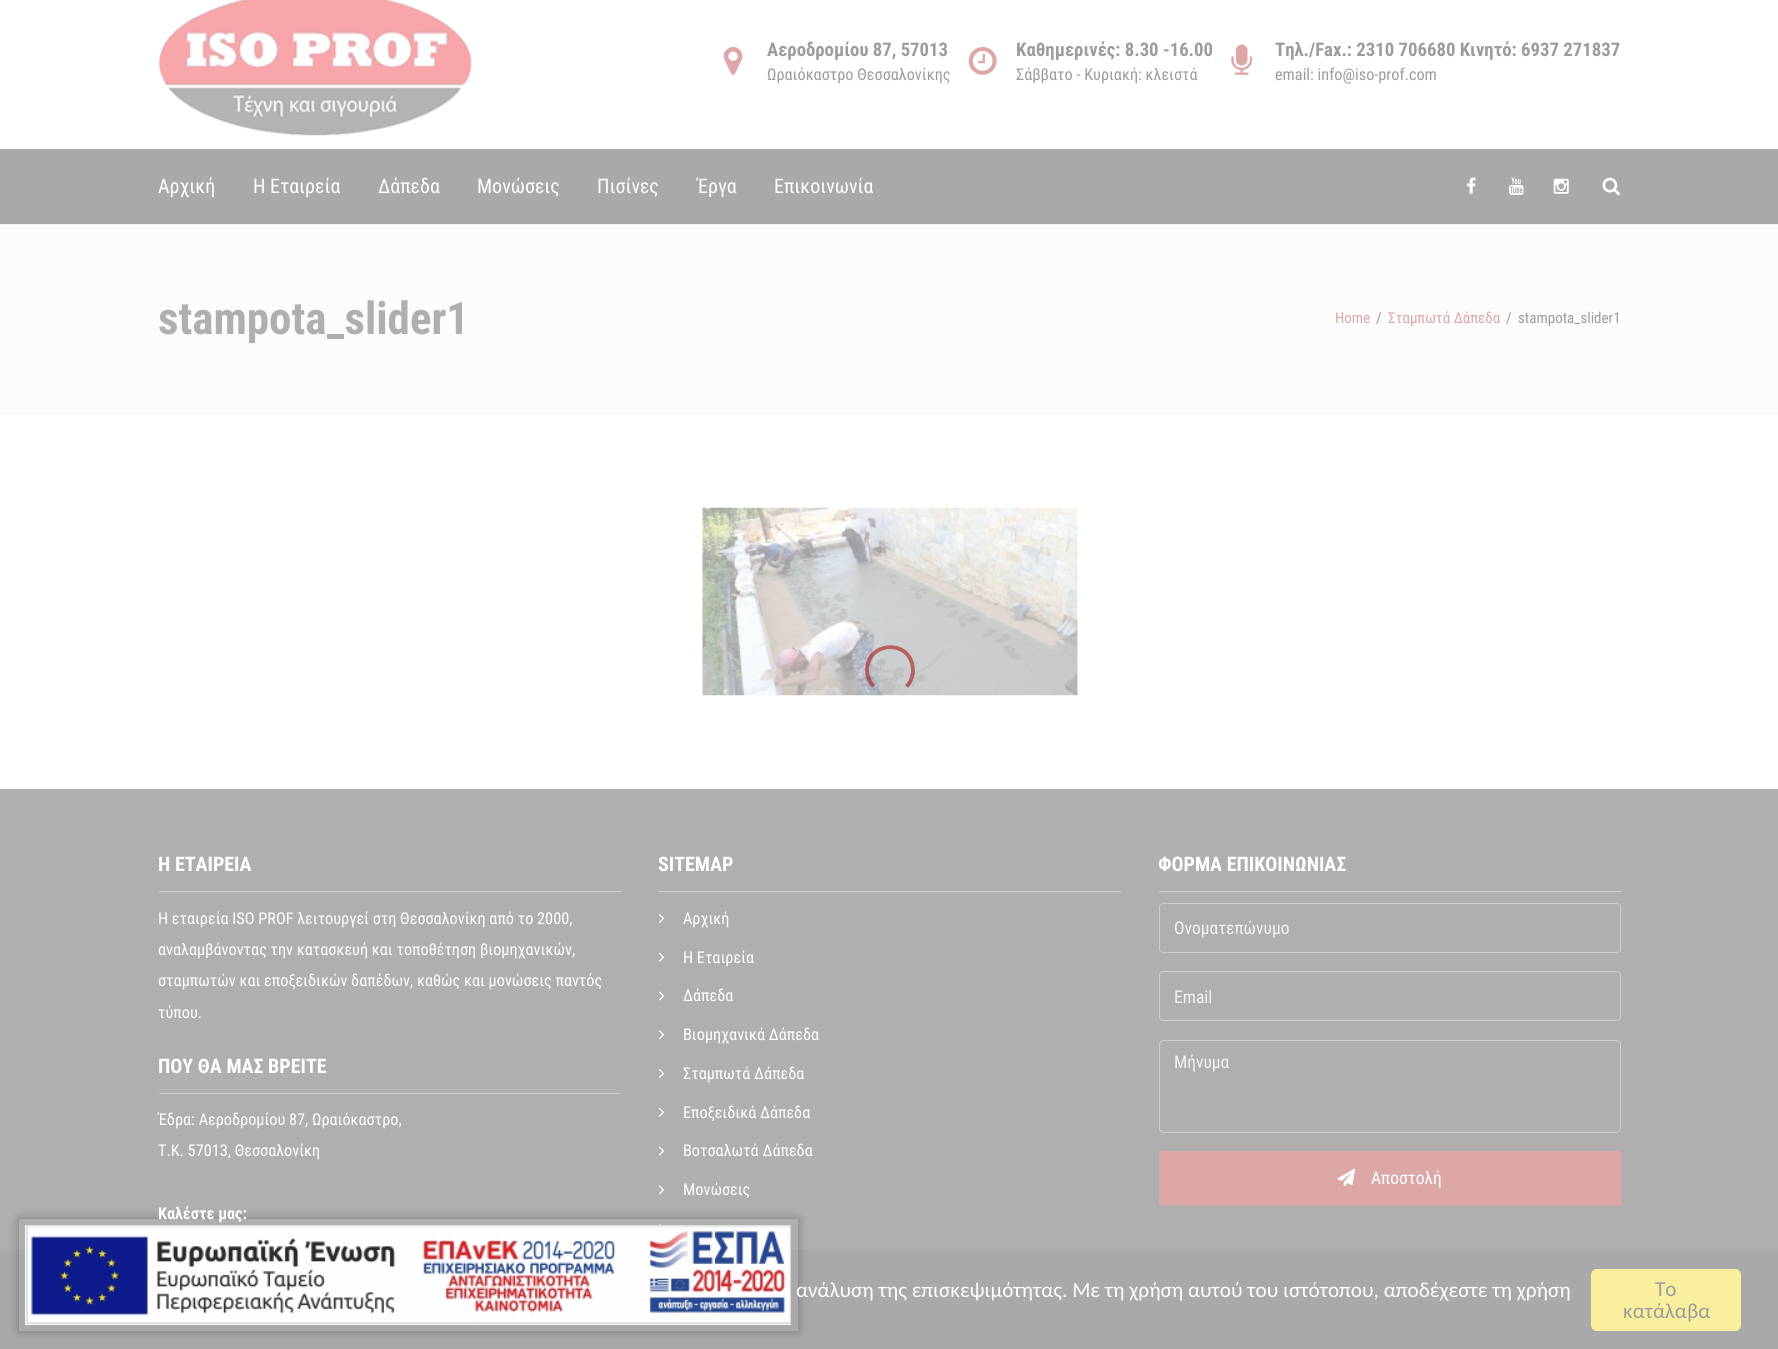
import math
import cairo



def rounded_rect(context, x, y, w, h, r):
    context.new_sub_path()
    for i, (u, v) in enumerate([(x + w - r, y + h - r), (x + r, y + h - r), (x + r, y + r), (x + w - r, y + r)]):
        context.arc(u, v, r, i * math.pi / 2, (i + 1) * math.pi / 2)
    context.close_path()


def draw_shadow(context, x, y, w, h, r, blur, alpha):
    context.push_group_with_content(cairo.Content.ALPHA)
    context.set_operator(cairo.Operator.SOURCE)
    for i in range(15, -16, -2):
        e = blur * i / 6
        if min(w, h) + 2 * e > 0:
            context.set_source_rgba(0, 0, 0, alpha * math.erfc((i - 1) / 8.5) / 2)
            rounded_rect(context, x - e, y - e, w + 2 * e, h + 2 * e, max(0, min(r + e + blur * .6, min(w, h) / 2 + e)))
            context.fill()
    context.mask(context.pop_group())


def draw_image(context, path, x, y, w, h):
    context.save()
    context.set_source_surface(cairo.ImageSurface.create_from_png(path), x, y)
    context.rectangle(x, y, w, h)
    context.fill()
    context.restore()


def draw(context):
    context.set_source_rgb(1, 1, 1)
    context.paint()
    draw_image(context, "images/1.png", 158, 0, 314, 136)
    draw_image(context, "images/2.png", 723, 47, 20, 28)
    draw_image(context, "images/3.png", 968, 47, 29, 28)
    draw_image(context, "images/4.png", 1231, 44, 22, 31)
    context.set_source_rgb(169 / 255, 169 / 255, 169 / 255)
    context.rectangle(0, 149, 1778, 75)
    context.fill()
    draw_image(context, "images/5.png", 1467, 177, 9, 17)
    draw_image(context, "images/6.png", 1509, 177, 15, 18)
    draw_image(context, "images/7.png", 1553, 178, 16, 16)
    draw_image(context, "images/8.png", 1602, 177, 18, 19)
    context.set_source_rgb(243 / 255, 243 / 255, 243 / 255)
    context.rectangle(0, 224, 1778, 1)
    context.fill()
    context.set_source_rgb(252 / 255, 252 / 255, 252 / 255)
    context.rectangle(0, 225, 1778, 188)
    context.fill()
    context.set_source_rgb(243 / 255, 243 / 255, 243 / 255)
    context.rectangle(0, 413, 1778, 1)
    context.fill()
    draw_image(context, "images/9.png", 702, 507, 376, 189)
    context.set_source_rgb(175 / 255, 175 / 255, 175 / 255)
    context.rectangle(0, 789, 1778, 461)
    context.fill()
    context.set_source_rgb(204 / 255, 204 / 255, 204 / 255)
    context.rectangle(159, 891, 462, 1)
    context.fill()
    context.rectangle(159, 1093, 462, 1)
    context.fill()
    context.rectangle(659, 891, 462, 1)
    context.fill()
    draw_image(context, "images/10.png", 658, 914, 7, 9)
    draw_image(context, "images/11.png", 658, 952, 7, 10)
    draw_image(context, "images/12.png", 658, 991, 7, 10)
    draw_image(context, "images/13.png", 658, 1030, 7, 10)
    draw_image(context, "images/10.png", 658, 1069, 7, 9)
    draw_image(context, "images/11.png", 658, 1107, 7, 10)
    draw_image(context, "images/12.png", 658, 1146, 7, 10)
    draw_image(context, "images/13.png", 658, 1185, 7, 10)
    draw_image(context, "images/14.png", 658, 1224, 3, 1)
    context.rectangle(1159, 891, 462, 1)
    context.fill()
    rounded_rect(context, 1159.5, 903.5, 461, 49, 3.5)
    context.set_line_width(1)
    context.stroke()
    rounded_rect(context, 1159.5, 971.5, 461, 49, 3.5)
    context.stroke()
    rounded_rect(context, 1159.5, 1040.5, 461, 92, 4.5)
    context.stroke()
    context.set_source_rgb(222 / 255, 167 / 255, 167 / 255)
    rounded_rect(context, 1159, 1151, 462, 55, 2.5)
    context.fill()
    context.set_source_rgba(156 / 255, 156 / 255, 156 / 255, 0.2)
    context.rectangle(1160, 1204, 460, 3)
    context.fill()
    draw_image(context, "images/15.png", 1337, 1168, 18, 19)
    context.new_path()
    context.move_to(873.5, 686.5)
    context.curve_to(869.5, 682, 867, 676, 867, 670)
    context.curve_to(867, 642.5, 907.5, 638.5, 912.5, 665.5)
    context.curve_to(914, 673, 912, 681, 906.5, 686.5)
    context.set_source_rgba(170 / 255, 29 / 255, 29 / 255, 0.61)
    context.set_line_width(3.8)
    context.stroke()
    context.set_source_rgb(169 / 255, 169 / 255, 169 / 255)
    context.rectangle(0, 1250, 1778, 99)
    context.fill()
    context.save()
    context.set_fill_rule(cairo.FillRule.EVEN_ODD)
    context.new_path()
    context.move_to(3, 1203)
    context.line_to(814, 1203)
    context.line_to(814, 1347)
    context.line_to(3, 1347)
    context.close_path()
    context.move_to(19, 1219)
    context.line_to(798, 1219)
    context.line_to(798, 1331)
    context.line_to(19, 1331)
    context.close_path()
    context.clip()
    context.set_source_rgb(0, 0, 0)
    draw_shadow(context, 19, 1219, 779, 112, 0, 5, 0.3)
    context.restore()
    draw_image(context, "images/16.png", 25, 1225, 766, 100)
    context.set_source_rgb(250 / 255, 239 / 255, 156 / 255)
    rounded_rect(context, 1591, 1269, 150, 62, 6)
    context.fill()
    context.select_font_face("Roboto Condensed", cairo.FontSlant.NORMAL, cairo.FontWeight.BOLD)
    context.set_font_size(18.75)
    context.set_source_rgb(156 / 255, 156 / 255, 156 / 255)
    context.move_to(767, 56)
    context.show_text("Αεροδρομίου 87, 57013")
    context.select_font_face("Roboto Condensed")
    context.set_font_size(16.25)
    context.move_to(767, 80)
    context.show_text("Ωραιόκαστρο Θεσσαλονίκης")
    context.select_font_face("Roboto Condensed", cairo.FontSlant.NORMAL, cairo.FontWeight.BOLD)
    context.set_font_size(18.75)
    context.move_to(1016, 56)
    context.show_text("Καθημερινές: 8.30 -16.00")
    context.select_font_face("Roboto Condensed")
    context.set_font_size(16.25)
    context.move_to(1016, 80)
    context.show_text("Σάββατο - Κυριακή: κλειστά")
    context.select_font_face("Roboto Condensed", cairo.FontSlant.NORMAL, cairo.FontWeight.BOLD)
    context.set_font_size(18.75)
    context.move_to(1275, 56)
    context.show_text("Τηλ./Fax.: 2310 706680 Κινητό: 6937 271837")
    context.select_font_face("Roboto Condensed")
    context.set_font_size(16.25)
    context.move_to(1275, 80)
    context.show_text("email: info@iso-prof.com")
    context.set_font_size(20)
    context.set_source_rgb(1, 1, 1)
    context.move_to(158, 193)
    context.show_text("Αρχική")
    context.move_to(253, 193)
    context.show_text("Η Εταιρεία")
    context.move_to(378, 193)
    context.show_text("Δάπεδα")
    context.move_to(477, 193)
    context.show_text("Μονώσεις")
    context.move_to(597, 193)
    context.show_text("Πισίνες")
    context.move_to(697, 193)
    context.show_text("Έργα")
    context.move_to(774, 193)
    context.show_text("Επικοινωνία")
    context.select_font_face("Roboto Condensed", cairo.FontSlant.NORMAL, cairo.FontWeight.BOLD)
    context.set_font_size(45)
    context.set_source_rgb(175 / 255, 175 / 255, 175 / 255)
    context.move_to(158, 334)
    context.show_text("stampota_slider1")
    context.select_font_face("Roboto Condensed")
    context.set_font_size(15)
    context.set_source_rgb(222 / 255, 167 / 255, 167 / 255)
    context.move_to(1335, 323)
    context.show_text("Home")
    context.set_source_rgb(156 / 255, 156 / 255, 156 / 255)
    context.move_to(1376, 323)
    context.show_text("/")
    context.set_source_rgb(222 / 255, 167 / 255, 167 / 255)
    context.move_to(1388, 323)
    context.show_text("Σταμπωτά Δάπεδα")
    context.set_source_rgb(156 / 255, 156 / 255, 156 / 255)
    context.move_to(1506, 323)
    context.show_text("/")
    context.move_to(1518, 323)
    context.show_text("stampota_slider1")
    context.select_font_face("Roboto Condensed", cairo.FontSlant.NORMAL, cairo.FontWeight.BOLD)
    context.set_font_size(20)
    context.set_source_rgb(1, 1, 1)
    context.move_to(158, 871)
    context.show_text("Η ΕΤΑΙΡΕΙΑ")
    context.select_font_face("Roboto Condensed")
    context.set_font_size(16.25)
    context.move_to(158, 924)
    context.show_text("Η εταιρεία ISO PROF λειτουργεί στη Θεσσαλονίκη από το 2000,")
    context.move_to(158, 955)
    context.show_text("αναλαμβάνοντας την κατασκευή και τοποθέτηση βιομηχανικών,")
    context.move_to(158, 986)
    context.show_text("σταμπωτών και εποξειδικών δαπέδων, καθώς και μονώσεις παντός")
    context.move_to(158, 1018)
    context.show_text("τύπου.")
    context.select_font_face("Roboto Condensed", cairo.FontSlant.NORMAL, cairo.FontWeight.BOLD)
    context.set_font_size(20)
    context.move_to(158, 1073)
    context.show_text("ΠΟΥ ΘΑ ΜΑΣ ΒΡΕΙΤΕ")
    context.select_font_face("Roboto Condensed")
    context.set_font_size(16.25)
    context.move_to(158, 1125)
    context.show_text("Έδρα: Αεροδρομίου 87, Ωραιόκαστρο,")
    context.move_to(158, 1156)
    context.show_text("Τ.Κ. 57013, Θεσσαλονίκη")
    context.select_font_face("Roboto Condensed", cairo.FontSlant.NORMAL, cairo.FontWeight.BOLD)
    context.move_to(158, 1219)
    context.show_text("Καλέστε μας:")
    context.set_font_size(20)
    context.move_to(658, 871)
    context.show_text("SITEMAP")
    context.select_font_face("Roboto Condensed")
    context.set_font_size(16.25)
    context.move_to(683, 924)
    context.show_text("Αρχική")
    context.move_to(683, 963)
    context.show_text("Η Εταιρεία")
    context.move_to(683, 1001)
    context.show_text("Δάπεδα")
    context.move_to(683, 1040)
    context.show_text("Βιομηχανικά Δάπεδα")
    context.move_to(683, 1079)
    context.show_text("Σταμπωτά Δάπεδα")
    context.move_to(683, 1118)
    context.show_text("Εποξειδικά Δάπεδα")
    context.move_to(683, 1156)
    context.show_text("Βοτσαλωτά Δάπεδα")
    context.move_to(683, 1195)
    context.show_text("Μονώσεις")
    context.select_font_face("Roboto Condensed", cairo.FontSlant.NORMAL, cairo.FontWeight.BOLD)
    context.set_font_size(20)
    context.move_to(1158, 871)
    context.show_text("ΦΟΡΜΑ ΕΠΙΚΟΙΝΩΝΙΑΣ")
    context.select_font_face("Roboto Condensed")
    context.set_font_size(17.5)
    context.set_source_rgb(243 / 255, 243 / 255, 243 / 255)
    context.move_to(1174, 934)
    context.show_text("Ονοματεπώνυμο")
    context.move_to(1174, 1003)
    context.show_text("Email")
    context.move_to(1174, 1068)
    context.show_text("Μήνυμα")
    context.set_source_rgb(1, 1, 1)
    context.move_to(1371, 1184)
    context.show_text("Αποστολή")
    context.select_font_face("Carlito")
    context.set_font_size(21.25)
    context.move_to(796, 1297)
    context.show_text("ανάλυση της επισκεψιμότητας. Με τη χρήση αυτού του ιστότοπου, αποδέχεστε τη χρήση")
    context.set_source_rgb(156 / 255, 156 / 255, 156 / 255)
    context.move_to(1655, 1296)
    context.show_text("Το")
    context.move_to(1623, 1318)
    context.show_text("κατάλαβα")


surface = cairo.ImageSurface(cairo.Format.RGB24, 1778, 1349)
context = cairo.Context(surface)
options = cairo.FontOptions()
options.set_hint_metrics(cairo.HintMetrics.OFF)
options.set_hint_style(cairo.HintStyle.NONE)
context.set_font_options(options)
context.set_miter_limit(4)
draw(context)
surface.write_to_png("out.png")
